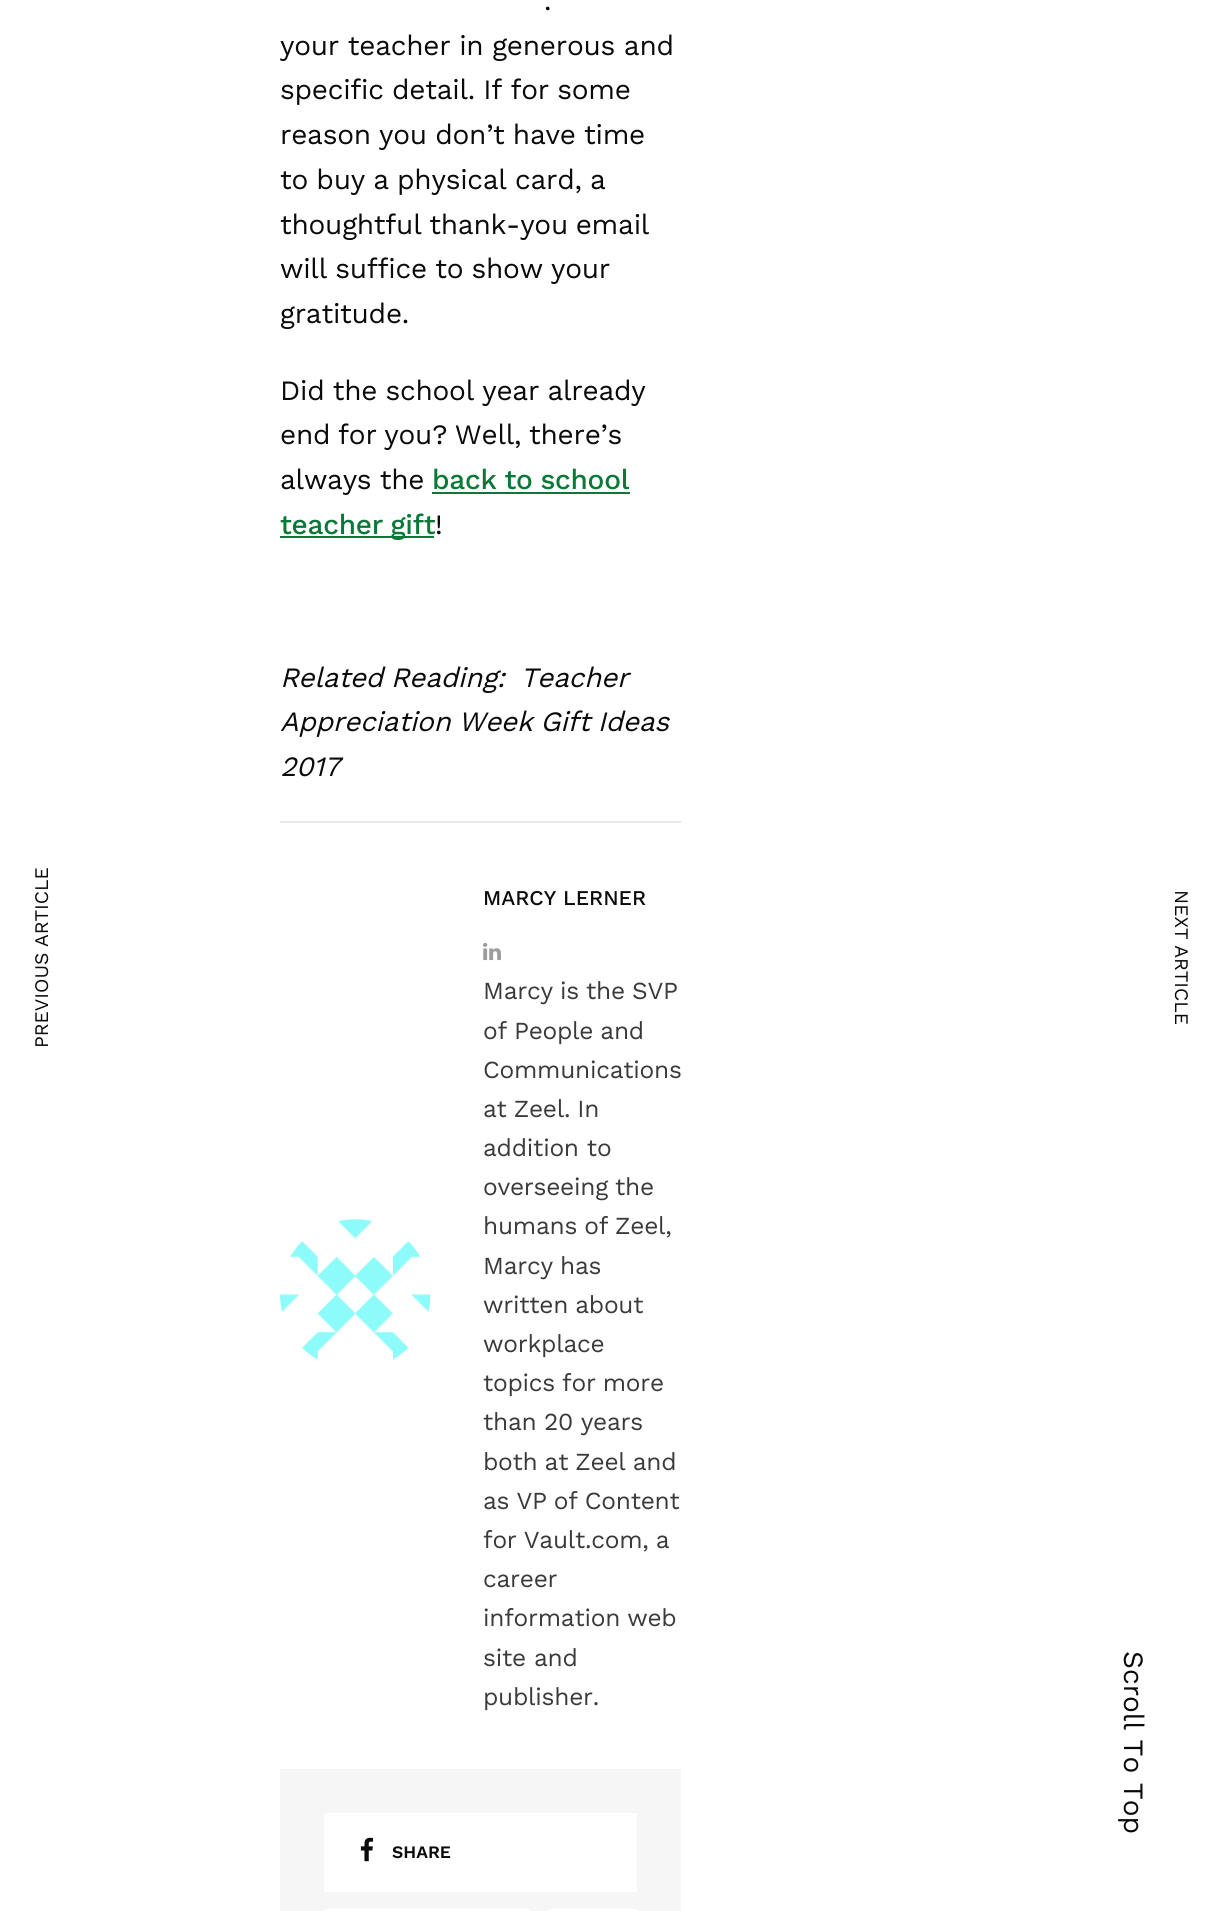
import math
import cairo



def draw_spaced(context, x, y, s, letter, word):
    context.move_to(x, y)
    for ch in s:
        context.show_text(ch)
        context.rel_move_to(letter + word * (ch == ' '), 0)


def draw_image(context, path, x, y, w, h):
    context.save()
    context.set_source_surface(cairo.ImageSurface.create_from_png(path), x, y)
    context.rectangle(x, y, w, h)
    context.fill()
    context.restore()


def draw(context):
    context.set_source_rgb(1, 1, 1)
    context.paint()
    context.set_source_rgb(10 / 255, 121 / 255, 56 / 255)
    context.rectangle(432, 492, 198, 2)
    context.fill()
    context.rectangle(280, 536, 154, 2)
    context.fill()
    context.set_source_rgb(233 / 255, 233 / 255, 233 / 255)
    context.rectangle(280, 821, 401, 2)
    context.fill()
    draw_image(context, "images/1.png", 280, 1219, 151, 141)
    draw_image(context, "images/2.png", 483, 942, 18, 19)
    context.set_source_rgb(246 / 255, 246 / 255, 246 / 255)
    context.rectangle(280, 1769, 401, 142)
    context.fill()
    context.set_source_rgb(1, 1, 1)
    context.rectangle(324, 1813, 313, 79)
    context.fill()
    draw_image(context, "images/3.png", 360, 1837, 14, 25)
    context.rectangle(324, 1909, 206, 2)
    context.fill()
    context.rectangle(548, 1909, 89, 2)
    context.fill()
    context.select_font_face("Work Sans")
    context.set_font_size(19.25)
    context.set_source_rgb(10 / 255, 10 / 255, 10 / 255)
    context.save()
    context.translate(48, 1048)
    context.rotate(-90 * math.pi / 180)
    draw_spaced(context, 0, 0, "PREVIOUS ARTICLE", 0, -1)
    context.restore()
    context.set_font_size(28)
    draw_spaced(context, 544, 10, ".", -0.25, -1)
    draw_spaced(context, 280, 55, "your teacher in generous and", -0.25, -0.5)
    draw_spaced(context, 280, 99, "specific detail. If for some", -0.25, -1)
    draw_spaced(context, 280, 144, "reason you don’t have time", -0.25, -1)
    draw_spaced(context, 280, 189, "to buy a physical card, a", -0.25, -1)
    draw_spaced(context, 280, 234, "thoughtful thank-you email", -0.25, -1.5)
    draw_spaced(context, 280, 278, "will suffice to show your", -0.25, -1)
    draw_spaced(context, 280, 323, "gratitude.", -0.25, 0)
    draw_spaced(context, 280, 400, "Did the school year already", -0.25, -1)
    draw_spaced(context, 280, 444, "end for you? Well, there’s", -0.25, -1.5)
    draw_spaced(context, 280, 489, "always the", -0.25, -1)
    context.select_font_face("Work Sans Medium")
    context.set_source_rgb(10 / 255, 121 / 255, 56 / 255)
    draw_spaced(context, 432, 489, "back to school", -0.25, -1)
    draw_spaced(context, 280, 534, "teacher gift", -0.25, -1.5)
    context.select_font_face("Work Sans")
    context.set_source_rgb(10 / 255, 10 / 255, 10 / 255)
    draw_spaced(context, 435, 534, "!", -0.25, 0)
    context.select_font_face("Work Sans", cairo.FontSlant.ITALIC)
    draw_spaced(context, 280, 687, "Related Reading:  Teacher", -0.25, -1.5)
    draw_spaced(context, 280, 731, "Appreciation Week Gift Ideas", -0.25, -1.5)
    draw_spaced(context, 280, 776, "2017", -0.25, 0)
    context.select_font_face("Work Sans Medium")
    context.set_font_size(21)
    context.move_to(483, 905)
    context.show_text("MARCY LERNER")
    context.select_font_face("Work Sans")
    context.set_font_size(24.5)
    context.set_source_rgb(58 / 255, 58 / 255, 58 / 255)
    draw_spaced(context, 483, 999, "Marcy is the SVP", -0.25, -1)
    draw_spaced(context, 483, 1039, "of People and", -0.25, -1)
    draw_spaced(context, 483, 1078, "Communications", -0.25, 0)
    draw_spaced(context, 483, 1117, "at Zeel. In", -0.25, -1)
    draw_spaced(context, 483, 1156, "addition to", -0.25, 0)
    draw_spaced(context, 483, 1195, "overseeing the", -0.25, -1)
    draw_spaced(context, 483, 1234, "humans of Zeel,", -0.25, -1)
    draw_spaced(context, 483, 1274, "Marcy has", -0.25, -1)
    draw_spaced(context, 483, 1313, "written about", -0.25, -1)
    draw_spaced(context, 483, 1352, "workplace", -0.25, 0)
    draw_spaced(context, 483, 1391, "topics for more", -0.25, -1)
    draw_spaced(context, 483, 1430, "than 20 years", -0.25, -0.5)
    draw_spaced(context, 483, 1470, "both at Zeel and", -0.25, -1)
    draw_spaced(context, 483, 1509, "as VP of Content", -0.25, -1)
    draw_spaced(context, 483, 1548, "for Vault.com, a", -0.25, -1)
    draw_spaced(context, 483, 1587, "career", -0.25, 0)
    draw_spaced(context, 483, 1626, "information web", -0.25, -1)
    draw_spaced(context, 483, 1666, "site and", -0.25, 0)
    draw_spaced(context, 483, 1705, "publisher.", -0.25, 0)
    context.select_font_face("Work Sans SemiBold")
    context.set_font_size(17.5)
    context.set_source_rgb(10 / 255, 10 / 255, 10 / 255)
    context.move_to(392, 1858)
    context.show_text("SHARE")
    context.select_font_face("Work Sans")
    context.set_font_size(19.25)
    context.save()
    context.translate(1175, 890)
    context.rotate(90 * math.pi / 180)
    draw_spaced(context, 0, 0, "NEXT ARTICLE", 0, -1)
    context.restore()
    context.set_font_size(28)
    context.save()
    context.translate(1124, 1651)
    context.rotate(90 * math.pi / 180)
    context.move_to(0, 0)
    context.show_text("Scroll To Top")
    context.restore()


surface = cairo.ImageSurface(cairo.Format.RGB24, 1223, 1911)
context = cairo.Context(surface)
options = cairo.FontOptions()
options.set_hint_metrics(cairo.HintMetrics.OFF)
options.set_hint_style(cairo.HintStyle.NONE)
context.set_font_options(options)
context.set_miter_limit(4)
draw(context)
surface.write_to_png("out.png")
